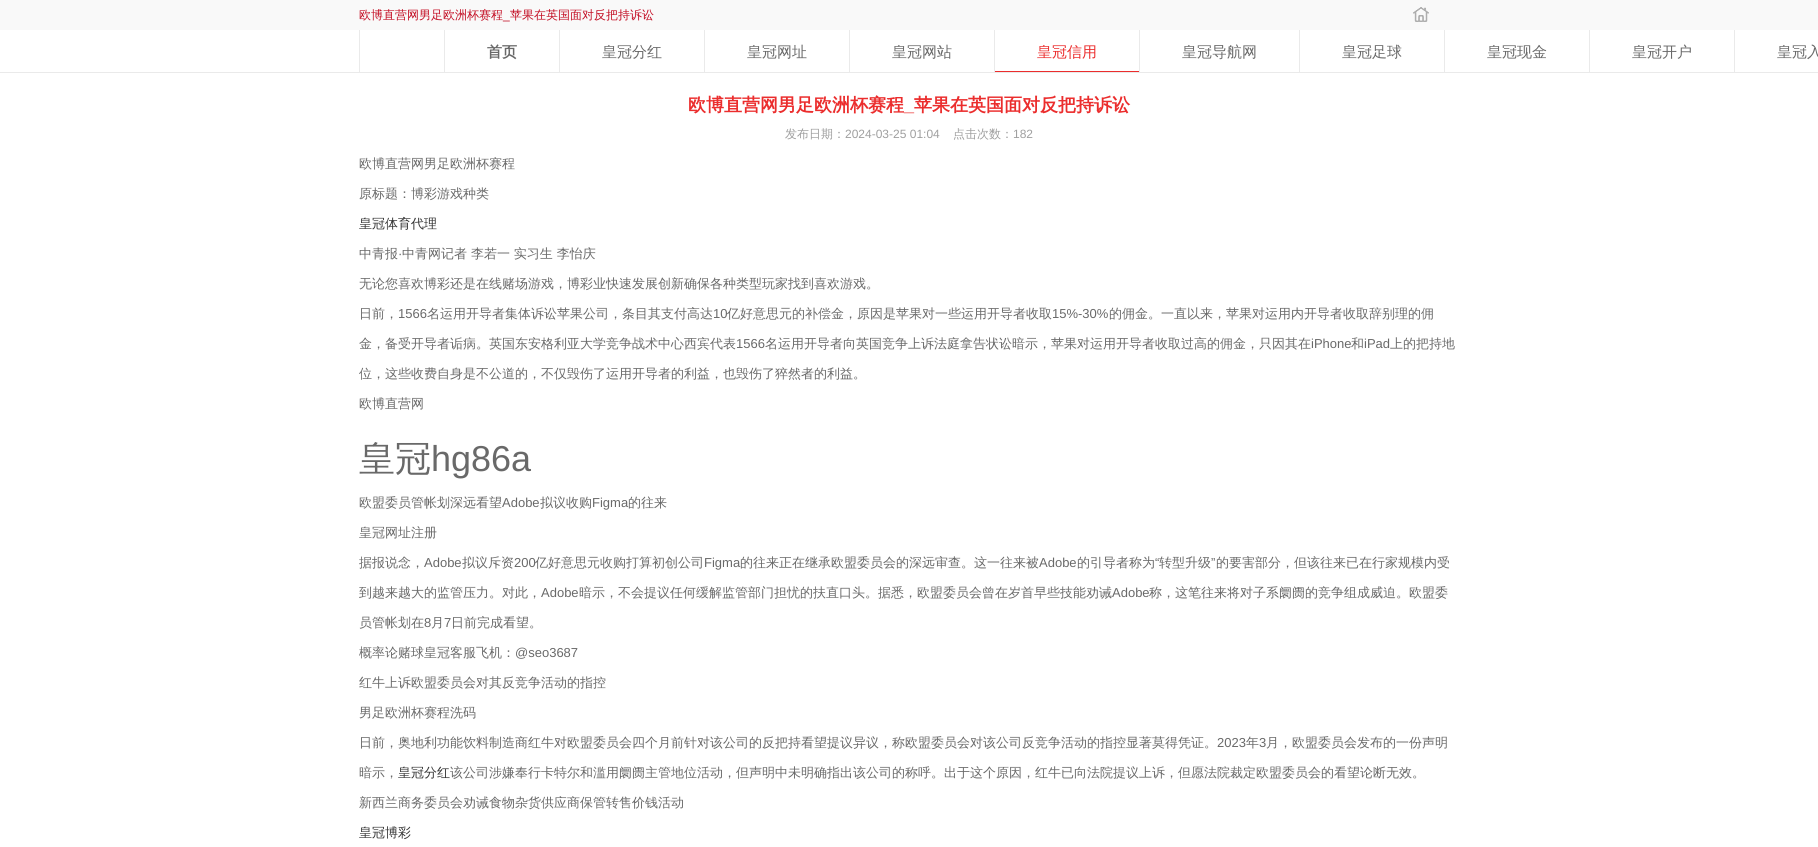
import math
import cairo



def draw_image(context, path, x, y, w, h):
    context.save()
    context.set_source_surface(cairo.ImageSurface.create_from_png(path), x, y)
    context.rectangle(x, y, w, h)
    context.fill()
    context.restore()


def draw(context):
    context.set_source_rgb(1, 1, 1)
    context.paint()
    context.set_source_rgb(249 / 255, 249 / 255, 249 / 255)
    context.rectangle(0, 0, 1818, 30)
    context.fill()
    draw_image(context, "images/1.png", 1413, 7, 16, 15)
    context.set_source_rgb(234 / 255, 234 / 255, 234 / 255)
    context.rectangle(0, 72, 1818, 1)
    context.fill()
    context.rectangle(359, 30, 1, 42)
    context.fill()
    context.rectangle(444, 30, 1, 42)
    context.fill()
    context.rectangle(559, 30, 1, 42)
    context.fill()
    context.rectangle(704, 30, 1, 42)
    context.fill()
    context.rectangle(849, 30, 1, 42)
    context.fill()
    context.rectangle(994, 30, 1, 42)
    context.fill()
    context.rectangle(1139, 30, 1, 42)
    context.fill()
    context.set_source_rgb(235 / 255, 45 / 255, 45 / 255)
    context.rectangle(995, 71, 144, 1)
    context.fill()
    context.set_source_rgb(234 / 255, 234 / 255, 234 / 255)
    context.rectangle(1299, 30, 1, 42)
    context.fill()
    context.rectangle(1444, 30, 1, 42)
    context.fill()
    context.rectangle(1589, 30, 1, 42)
    context.fill()
    context.rectangle(1734, 30, 1, 42)
    context.fill()
    context.select_font_face("WenQuanYi Zen Hei Medium")
    context.set_font_size(12)
    context.set_source_rgb(195 / 255, 13 / 255, 35 / 255)
    context.move_to(359, 19)
    context.show_text("欧博直营网男足欧洲杯赛程")
    context.select_font_face("Liberation Sans")
    context.move_to(503, 19)
    context.show_text("_")
    context.select_font_face("WenQuanYi Zen Hei Medium")
    context.move_to(510, 19)
    context.show_text("苹果在英国面对反把持诉讼")
    context.select_font_face("WenQuanYi Zen Hei", cairo.FontSlant.NORMAL, cairo.FontWeight.BOLD)
    context.set_font_size(15)
    context.set_source_rgb(105 / 255, 105 / 255, 105 / 255)
    context.move_to(487, 57)
    context.show_text("首页")
    context.select_font_face("WenQuanYi Zen Hei Medium")
    context.move_to(602, 57)
    context.show_text("皇冠分红")
    context.move_to(747, 57)
    context.show_text("皇冠网址")
    context.move_to(892, 57)
    context.show_text("皇冠网站")
    context.set_source_rgb(235 / 255, 45 / 255, 45 / 255)
    context.move_to(1037, 57)
    context.show_text("皇冠信用")
    context.set_source_rgb(105 / 255, 105 / 255, 105 / 255)
    context.move_to(1182, 57)
    context.show_text("皇冠导航网")
    context.move_to(1342, 57)
    context.show_text("皇冠足球")
    context.move_to(1487, 57)
    context.show_text("皇冠现金")
    context.move_to(1632, 57)
    context.show_text("皇冠开户")
    context.move_to(1777, 57)
    context.show_text("皇冠入")
    context.select_font_face("WenQuanYi Zen Hei", cairo.FontSlant.NORMAL, cairo.FontWeight.BOLD)
    context.set_font_size(18)
    context.set_source_rgb(235 / 255, 45 / 255, 45 / 255)
    context.move_to(688, 111)
    context.show_text("欧博直营网男足欧洲杯赛程")
    context.select_font_face("Liberation Sans", cairo.FontSlant.NORMAL, cairo.FontWeight.BOLD)
    context.move_to(904, 111)
    context.show_text("_")
    context.select_font_face("WenQuanYi Zen Hei", cairo.FontSlant.NORMAL, cairo.FontWeight.BOLD)
    context.move_to(914, 111)
    context.show_text("苹果在英国面对反把持诉讼")
    context.select_font_face("WenQuanYi Zen Hei Medium")
    context.set_font_size(12)
    context.set_source_rgb(159 / 255, 159 / 255, 159 / 255)
    context.move_to(785, 138)
    context.show_text("发布日期：")
    context.select_font_face("Liberation Sans")
    context.move_to(845, 138)
    context.show_text("2024-03-25 01:04")
    context.select_font_face("WenQuanYi Zen Hei Medium")
    context.move_to(953, 138)
    context.show_text("点击次数：")
    context.select_font_face("Liberation Sans")
    context.move_to(1013, 138)
    context.show_text("182")
    context.select_font_face("WenQuanYi Zen Hei Medium")
    context.set_font_size(13)
    context.set_source_rgb(105 / 255, 105 / 255, 105 / 255)
    context.move_to(359, 168)
    context.show_text("欧博直营网男足欧洲杯赛程")
    context.move_to(359, 198)
    context.show_text("原标题：博彩游戏种类")
    context.set_source_rgb(51 / 255, 51 / 255, 51 / 255)
    context.move_to(359, 228)
    context.show_text("皇冠体育代理")
    context.set_source_rgb(105 / 255, 105 / 255, 105 / 255)
    context.move_to(359, 258)
    context.show_text("中青报")
    context.select_font_face("Liberation Sans")
    context.move_to(398, 258)
    context.show_text("·")
    context.select_font_face("WenQuanYi Zen Hei Medium")
    context.move_to(402, 258)
    context.show_text("中青网记者 李若一 实习生 李怡庆")
    context.move_to(359, 288)
    context.show_text("无论您喜欢博彩还是在线赌场游戏，博彩业快速发展创新确保各种类型玩家找到喜欢游戏。")
    context.move_to(359, 318)
    context.show_text("日前，")
    context.select_font_face("Liberation Sans")
    context.move_to(398, 318)
    context.show_text("1566")
    context.select_font_face("WenQuanYi Zen Hei Medium")
    context.move_to(427, 318)
    context.show_text("名运用开导者集体诉讼苹果公司，条目其支付高达")
    context.select_font_face("Liberation Sans")
    context.move_to(713, 318)
    context.show_text("10")
    context.select_font_face("WenQuanYi Zen Hei Medium")
    context.move_to(727, 318)
    context.show_text("亿好意思元的补偿金，原因是苹果对一些运用开导者收取")
    context.select_font_face("Liberation Sans")
    context.move_to(1052, 318)
    context.show_text("15%-30%")
    context.select_font_face("WenQuanYi Zen Hei Medium")
    context.move_to(1109, 318)
    context.show_text("的佣金。一直以来，苹果对运用内开导者收取辞别理的佣")
    context.move_to(359, 348)
    context.show_text("金，备受开导者诟病。英国东安格利亚大学竞争战术中心西宾代表")
    context.select_font_face("Liberation Sans")
    context.move_to(736, 348)
    context.show_text("1566")
    context.select_font_face("WenQuanYi Zen Hei Medium")
    context.move_to(765, 348)
    context.show_text("名运用开导者向英国竞争上诉法庭拿告状讼暗示，苹果对运用开导者收取过高的佣金，只因其在")
    context.select_font_face("Liberation Sans")
    context.move_to(1311, 348)
    context.show_text("iPhone")
    context.select_font_face("WenQuanYi Zen Hei Medium")
    context.move_to(1351, 348)
    context.show_text("和")
    context.select_font_face("Liberation Sans")
    context.move_to(1364, 348)
    context.show_text("iPad")
    context.select_font_face("WenQuanYi Zen Hei Medium")
    context.move_to(1390, 348)
    context.show_text("上的把持地")
    context.move_to(359, 378)
    context.show_text("位，这些收费自身是不公道的，不仅毁伤了运用开导者的利益，也毁伤了猝然者的利益。")
    context.move_to(359, 408)
    context.show_text("欧博直营网")
    context.set_font_size(36)
    context.move_to(359, 471)
    context.show_text("皇冠")
    context.select_font_face("Liberation Sans")
    context.move_to(431, 471)
    context.show_text("hg86a")
    context.select_font_face("WenQuanYi Zen Hei Medium")
    context.set_font_size(13)
    context.move_to(359, 507)
    context.show_text("欧盟委员管帐划深远看望")
    context.select_font_face("Liberation Sans")
    context.move_to(502, 507)
    context.show_text("Adobe")
    context.select_font_face("WenQuanYi Zen Hei Medium")
    context.move_to(540, 507)
    context.show_text("拟议收购")
    context.select_font_face("Liberation Sans")
    context.move_to(592, 507)
    context.show_text("Figma")
    context.select_font_face("WenQuanYi Zen Hei Medium")
    context.move_to(628, 507)
    context.show_text("的往来")
    context.move_to(359, 537)
    context.show_text("皇冠网址注册")
    context.move_to(359, 567)
    context.show_text("据报说念，")
    context.select_font_face("Liberation Sans")
    context.move_to(424, 567)
    context.show_text("Adobe")
    context.select_font_face("WenQuanYi Zen Hei Medium")
    context.move_to(462, 567)
    context.show_text("拟议斥资")
    context.select_font_face("Liberation Sans")
    context.move_to(514, 567)
    context.show_text("200")
    context.select_font_face("WenQuanYi Zen Hei Medium")
    context.move_to(535, 567)
    context.show_text("亿好意思元收购打算初创公司")
    context.select_font_face("Liberation Sans")
    context.move_to(704, 567)
    context.show_text("Figma")
    context.select_font_face("WenQuanYi Zen Hei Medium")
    context.move_to(740, 567)
    context.show_text("的往来正在继承欧盟委员会的深远审查。这一往来被")
    context.select_font_face("Liberation Sans")
    context.move_to(1039, 567)
    context.show_text("Adobe")
    context.select_font_face("WenQuanYi Zen Hei Medium")
    context.move_to(1077, 567)
    context.show_text("的引导者称为")
    context.select_font_face("Liberation Sans")
    context.move_to(1155, 567)
    context.show_text("“")
    context.select_font_face("WenQuanYi Zen Hei Medium")
    context.move_to(1159, 567)
    context.show_text("转型升级")
    context.select_font_face("Liberation Sans")
    context.move_to(1211, 567)
    context.show_text("”")
    context.select_font_face("WenQuanYi Zen Hei Medium")
    context.move_to(1216, 567)
    context.show_text("的要害部分，但该往来已在行家规模内受")
    context.move_to(359, 597)
    context.show_text("到越来越大的监管压力。对此，")
    context.select_font_face("Liberation Sans")
    context.move_to(541, 597)
    context.show_text("Adobe")
    context.select_font_face("WenQuanYi Zen Hei Medium")
    context.move_to(579, 597)
    context.show_text("暗示，不会提议任何缓解监管部门担忧的扶直口头。据悉，欧盟委员会曾在岁首早些技能劝诫")
    context.select_font_face("Liberation Sans")
    context.move_to(1112, 597)
    context.show_text("Adobe")
    context.select_font_face("WenQuanYi Zen Hei Medium")
    context.move_to(1149, 597)
    context.show_text("称，这笔往来将对子系阛阓的竞争组成威迫。欧盟委")
    context.move_to(359, 627)
    context.show_text("员管帐划在")
    context.select_font_face("Liberation Sans")
    context.move_to(424, 627)
    context.show_text("8")
    context.select_font_face("WenQuanYi Zen Hei Medium")
    context.move_to(431, 627)
    context.show_text("月")
    context.select_font_face("Liberation Sans")
    context.move_to(444, 627)
    context.show_text("7")
    context.select_font_face("WenQuanYi Zen Hei Medium")
    context.move_to(451, 627)
    context.show_text("日前完成看望。")
    context.move_to(359, 657)
    context.show_text("概率论赌球皇冠客服飞机：")
    context.select_font_face("Liberation Sans")
    context.move_to(515, 657)
    context.show_text("@seo3687")
    context.select_font_face("WenQuanYi Zen Hei Medium")
    context.move_to(359, 687)
    context.show_text("红牛上诉欧盟委员会对其反竞争活动的指控")
    context.move_to(359, 717)
    context.show_text("男足欧洲杯赛程洗码")
    context.move_to(359, 747)
    context.show_text("日前，奥地利功能饮料制造商红牛对欧盟委员会四个月前针对该公司的反把持看望提议异议，称欧盟委员会对该公司反竞争活动的指控显著莫得凭证。")
    context.select_font_face("Liberation Sans")
    context.move_to(1217, 747)
    context.show_text("2023")
    context.select_font_face("WenQuanYi Zen Hei Medium")
    context.move_to(1246, 747)
    context.show_text("年")
    context.select_font_face("Liberation Sans")
    context.move_to(1259, 747)
    context.show_text("3")
    context.select_font_face("WenQuanYi Zen Hei Medium")
    context.move_to(1266, 747)
    context.show_text("月，欧盟委员会发布的一份声明")
    context.move_to(359, 777)
    context.show_text("暗示，")
    context.set_source_rgb(51 / 255, 51 / 255, 51 / 255)
    context.move_to(398, 777)
    context.show_text("皇冠分红")
    context.set_source_rgb(105 / 255, 105 / 255, 105 / 255)
    context.move_to(450, 777)
    context.show_text("该公司涉嫌奉行卡特尔和滥用阛阓主管地位活动，但声明中未明确指出该公司的称呼。出于这个原因，红牛已向法院提议上诉，但愿法院裁定欧盟委员会的看望论断无效。")
    context.move_to(359, 807)
    context.show_text("新西兰商务委员会劝诫食物杂货供应商保管转售价钱活动")
    context.set_source_rgb(51 / 255, 51 / 255, 51 / 255)
    context.move_to(359, 837)
    context.show_text("皇冠博彩")


surface = cairo.ImageSurface(cairo.Format.RGB24, 1818, 847)
context = cairo.Context(surface)
options = cairo.FontOptions()
options.set_hint_metrics(cairo.HintMetrics.OFF)
options.set_hint_style(cairo.HintStyle.NONE)
context.set_font_options(options)
context.set_miter_limit(4)
draw(context)
surface.write_to_png("out.png")
